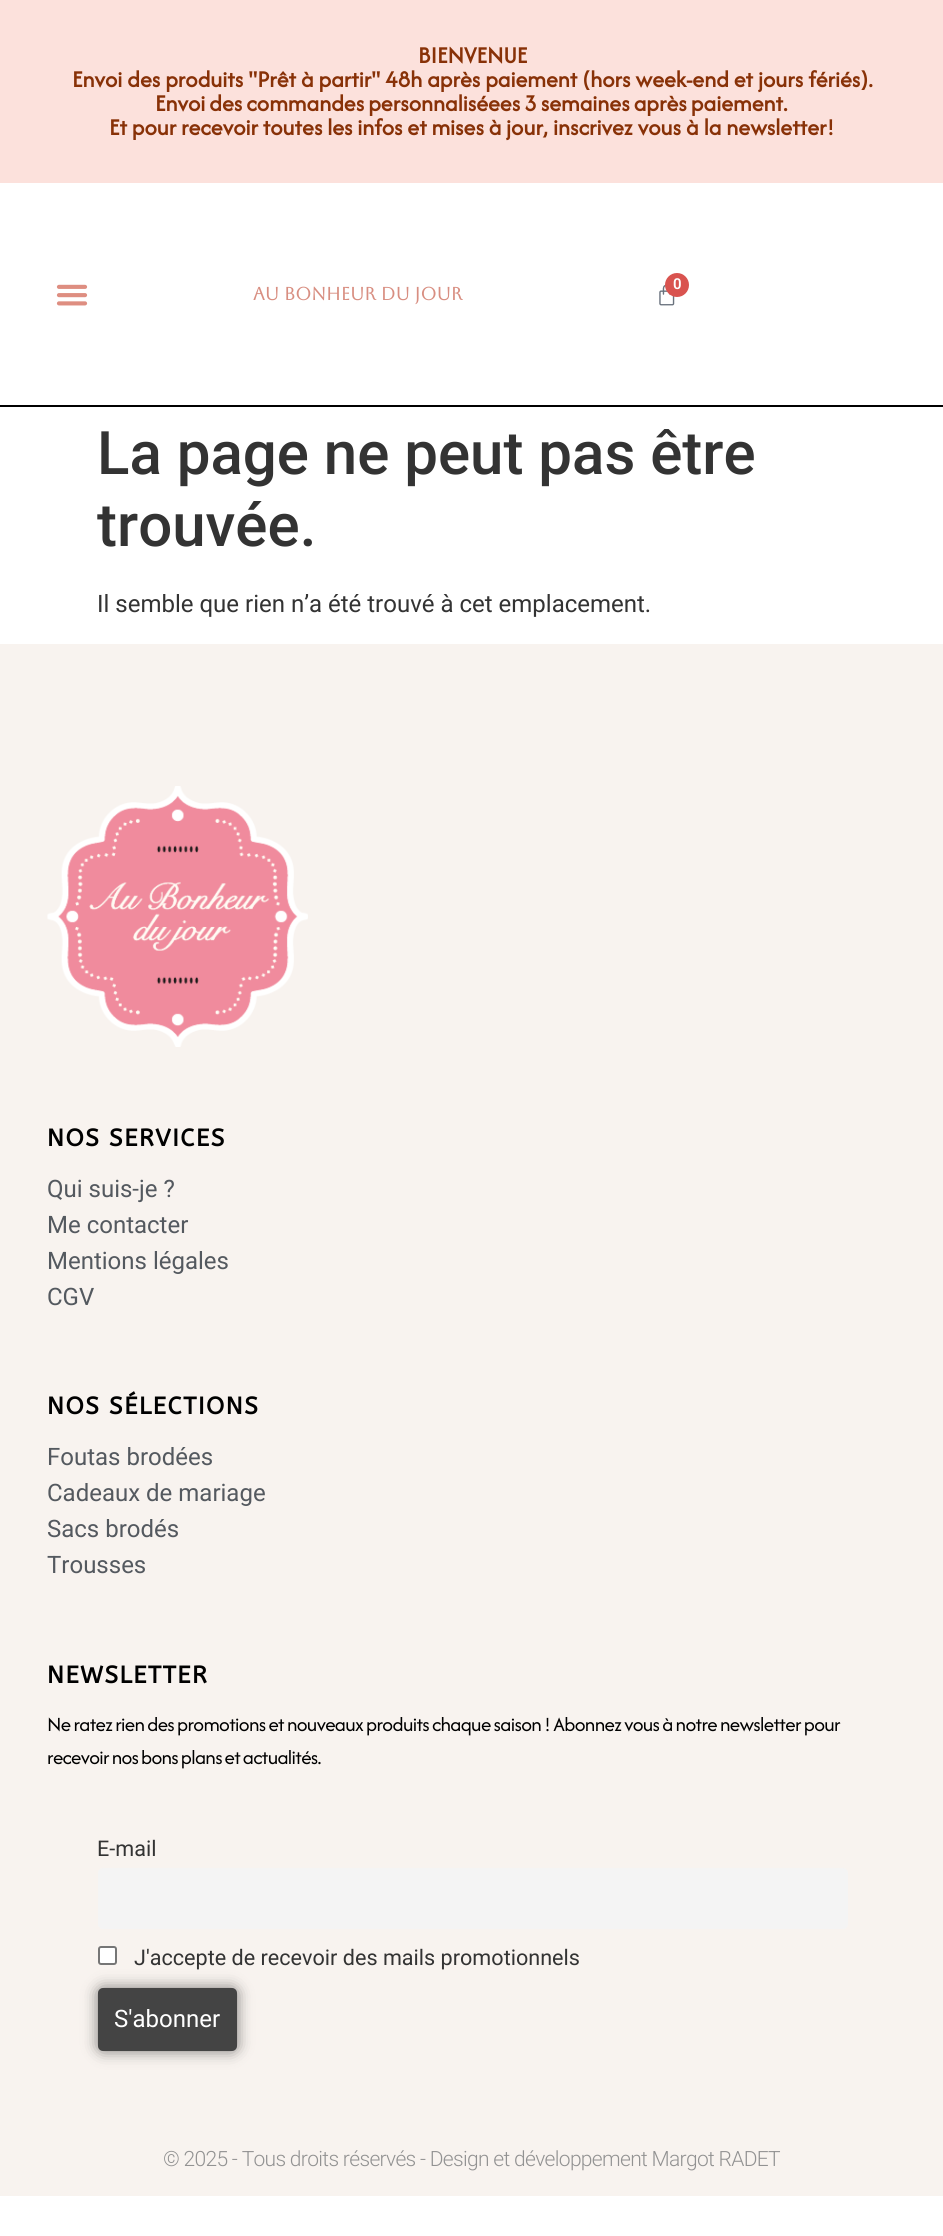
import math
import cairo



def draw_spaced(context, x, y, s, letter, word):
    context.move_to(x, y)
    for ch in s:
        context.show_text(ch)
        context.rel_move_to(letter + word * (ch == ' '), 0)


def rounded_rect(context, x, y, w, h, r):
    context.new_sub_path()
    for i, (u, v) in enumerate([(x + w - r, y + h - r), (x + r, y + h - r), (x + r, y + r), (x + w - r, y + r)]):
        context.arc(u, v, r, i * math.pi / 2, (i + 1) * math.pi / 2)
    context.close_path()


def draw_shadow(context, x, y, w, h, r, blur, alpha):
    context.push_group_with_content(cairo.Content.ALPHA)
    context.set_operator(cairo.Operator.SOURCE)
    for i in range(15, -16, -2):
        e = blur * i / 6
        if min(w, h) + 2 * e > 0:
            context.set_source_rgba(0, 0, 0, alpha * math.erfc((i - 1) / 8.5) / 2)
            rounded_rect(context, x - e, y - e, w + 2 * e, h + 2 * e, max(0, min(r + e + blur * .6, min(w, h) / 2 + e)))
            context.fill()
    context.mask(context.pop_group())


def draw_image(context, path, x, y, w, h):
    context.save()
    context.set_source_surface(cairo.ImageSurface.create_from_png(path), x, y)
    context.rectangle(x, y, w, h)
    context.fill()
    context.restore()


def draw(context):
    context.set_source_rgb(1, 1, 1)
    context.paint()
    context.set_source_rgb(252 / 255, 225 / 255, 220 / 255)
    context.rectangle(0, 0, 943, 183)
    context.fill()
    context.set_source_rgb(0, 0, 0)
    context.rectangle(0, 405, 943, 2)
    context.fill()
    draw_image(context, "images/1.png", 56, 284, 32, 22)
    draw_image(context, "images/2.png", 659, 284, 16, 22)
    context.set_source_rgb(217 / 255, 83 / 255, 79 / 255)
    context.arc(677, 285, 12, 0, 2 * math.pi)
    context.fill()
    context.set_source_rgb(248 / 255, 243 / 255, 239 / 255)
    context.rectangle(0, 644, 943, 1552)
    context.fill()
    draw_image(context, "images/3.png", 47, 786, 261, 261)
    context.set_source_rgb(244 / 255, 244 / 255, 244 / 255)
    rounded_rect(context, 98, 1868, 750, 61, 5)
    context.fill()
    context.set_source_rgb(1, 1, 1)
    rounded_rect(context, 99, 1947, 17, 17, 2)
    context.fill_preserve()
    context.set_source_rgb(118 / 255, 118 / 255, 118 / 255)
    context.stroke()
    context.set_source_rgb(0, 0, 0)
    draw_shadow(context, 98, 1988, 139, 63, 5, 7.5, 0.5)
    context.set_source_rgb(68 / 255, 68 / 255, 68 / 255)
    rounded_rect(context, 98, 1988, 139, 63, 5)
    context.fill()
    context.select_font_face("Afacad Flux", cairo.FontSlant.NORMAL, cairo.FontWeight.BOLD)
    context.set_font_size(24)
    context.set_source_rgb(136 / 255, 49 / 255, 7 / 255)
    context.move_to(418, 63)
    context.show_text("BIENVENUE")
    draw_spaced(context, 72, 87, "Envoi des produits \"Prêt à partir\" 48h après paiement (hors week-end et jours fériés).", 0, -0.1)
    draw_spaced(context, 155, 111, "Envoi des commandes personnaliséees 3 semaines après paiement.", 0, -1)
    draw_spaced(context, 109, 135, "Et pour recevoir toutes les infos et mises à jour,", 0, -0.25)
    context.move_to(553, 135)
    context.show_text("inscrivez vous à la newsletter!")
    context.select_font_face("Aboreto", cairo.FontSlant.NORMAL, cairo.FontWeight.BOLD)
    context.set_font_size(18)
    context.set_source_rgb(216 / 255, 142 / 255, 129 / 255)
    context.move_to(253, 300)
    context.show_text("Au Bonheur Du Jour")
    context.select_font_face("Roboto SemiBold")
    context.set_font_size(15)
    context.set_source_rgb(1, 1, 1)
    context.move_to(673, 289)
    context.show_text("0")
    context.select_font_face("Roboto Medium")
    context.set_font_size(60)
    context.set_source_rgb(51 / 255, 51 / 255, 51 / 255)
    context.move_to(97, 474)
    context.show_text("La page ne peut pas être")
    context.move_to(97, 546)
    context.show_text("trouvée.")
    context.select_font_face("Roboto")
    context.set_font_size(24)
    context.move_to(97, 612)
    context.show_text("Il semble que rien n’a été trouvé à cet emplacement.")
    context.select_font_face("ABeeZee", cairo.FontSlant.NORMAL, cairo.FontWeight.BOLD)
    context.set_source_rgb(0, 0, 0)
    draw_spaced(context, 47, 1146, "NOS SERVICES", 1.5, 0)
    context.select_font_face("Roboto")
    context.set_source_rgb(84 / 255, 89 / 255, 95 / 255)
    context.move_to(47, 1197)
    context.show_text("Qui suis-je ?")
    context.move_to(47, 1233)
    context.show_text("Me contacter")
    context.move_to(47, 1269)
    context.show_text("Mentions légales")
    context.move_to(47, 1305)
    context.show_text("CGV")
    context.select_font_face("ABeeZee", cairo.FontSlant.NORMAL, cairo.FontWeight.BOLD)
    context.set_source_rgb(0, 0, 0)
    draw_spaced(context, 47, 1414, "NOS SÉLECTIONS", 1.5, 0)
    context.select_font_face("Roboto")
    context.set_source_rgb(84 / 255, 89 / 255, 95 / 255)
    context.move_to(47, 1465)
    context.show_text("Foutas brodées")
    context.move_to(47, 1501)
    context.show_text("Cadeaux de mariage")
    context.move_to(47, 1537)
    context.show_text("Sacs brodés")
    context.move_to(47, 1573)
    context.show_text("Trousses")
    context.select_font_face("ABeeZee", cairo.FontSlant.NORMAL, cairo.FontWeight.BOLD)
    context.set_source_rgb(0, 0, 0)
    draw_spaced(context, 47, 1683, "NEWSLETTER", 1.5, 0)
    context.select_font_face("Afacad Flux")
    context.set_font_size(21)
    draw_spaced(context, 47, 1731, "Ne ratez rien des promotions et nouveaux produits chaque saison ! Abonnez vous à notre newsletter pour", -0.68, -0.75)
    draw_spaced(context, 47, 1764, "recevoir nos bons plans et actualités.", -0.68, -1)
    context.select_font_face("Roboto")
    context.set_font_size(21.6)
    context.set_source_rgb(51 / 255, 51 / 255, 51 / 255)
    context.move_to(97, 1856)
    context.show_text("E-mail")
    context.move_to(134, 1965)
    context.show_text("J'accepte de recevoir des mails promotionnels")
    context.set_font_size(24)
    context.set_source_rgb(1, 1, 1)
    context.move_to(114, 2027)
    context.show_text("S'abonner")
    context.select_font_face("Roboto Light")
    context.set_font_size(21)
    context.set_source_rgb(146 / 255, 146 / 255, 146 / 255)
    draw_spaced(context, 163, 2166, "© 2025 - Tous droits réservés - Design et développement Margot RADET", -0.68, 0)


surface = cairo.ImageSurface(cairo.Format.RGB24, 943, 2236)
context = cairo.Context(surface)
options = cairo.FontOptions()
options.set_hint_metrics(cairo.HintMetrics.OFF)
options.set_hint_style(cairo.HintStyle.NONE)
context.set_font_options(options)
context.set_miter_limit(4)
draw(context)
surface.write_to_png("out.png")
